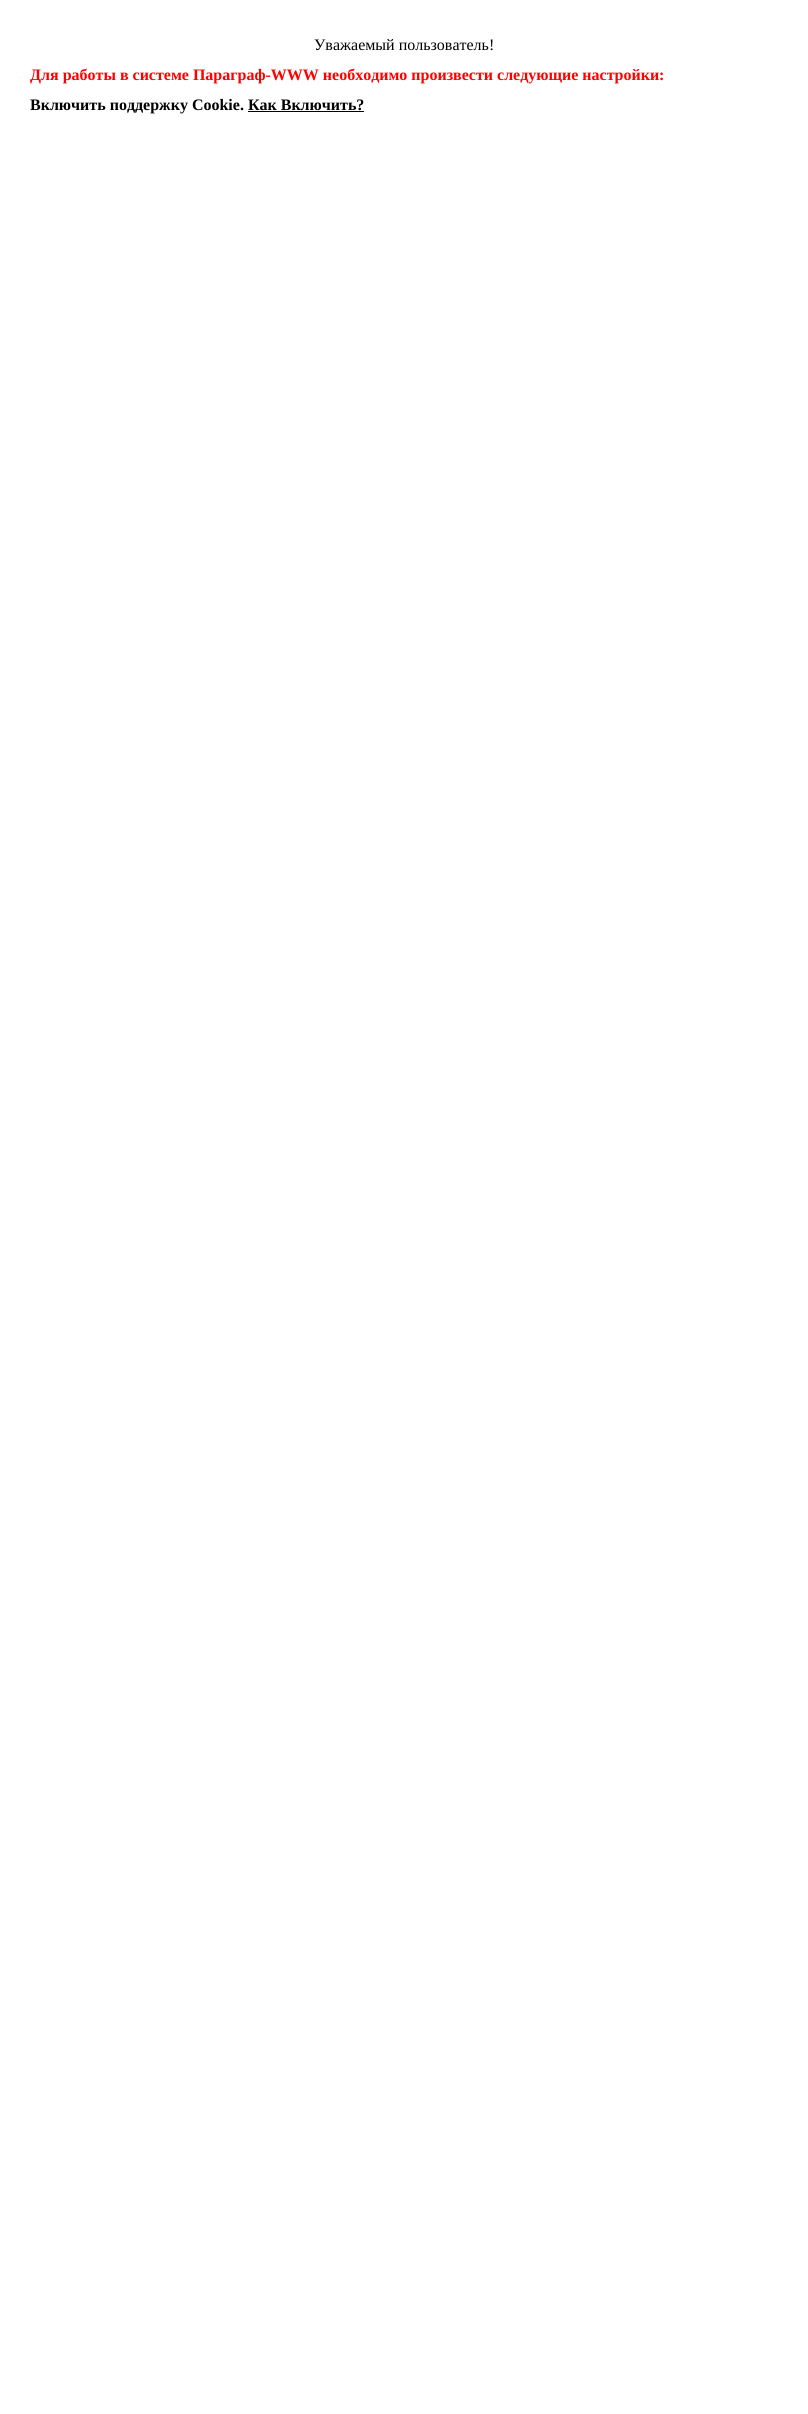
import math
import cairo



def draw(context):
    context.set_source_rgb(1, 1, 1)
    context.paint()
    context.set_source_rgb(0, 0, 0)
    context.rectangle(248, 111, 116, 1)
    context.fill()
    context.select_font_face("Liberation Serif")
    context.set_font_size(16)
    context.move_to(314, 50)
    context.show_text("Уважаемый пользователь!")
    context.select_font_face("Liberation Serif", cairo.FontSlant.NORMAL, cairo.FontWeight.BOLD)
    context.set_source_rgb(1, 0, 0)
    context.move_to(30, 80)
    context.show_text("Для работы в системе Параграф-WWW необходимо произвести следующие настройки:")
    context.set_source_rgb(0, 0, 0)
    context.move_to(30, 110)
    context.show_text("Включить поддержку Cookie. Как Включить?")


surface = cairo.ImageSurface(cairo.Format.RGB24, 808, 2414)
context = cairo.Context(surface)
options = cairo.FontOptions()
options.set_hint_metrics(cairo.HintMetrics.OFF)
options.set_hint_style(cairo.HintStyle.NONE)
context.set_font_options(options)
context.set_miter_limit(4)
draw(context)
surface.write_to_png("out.png")
